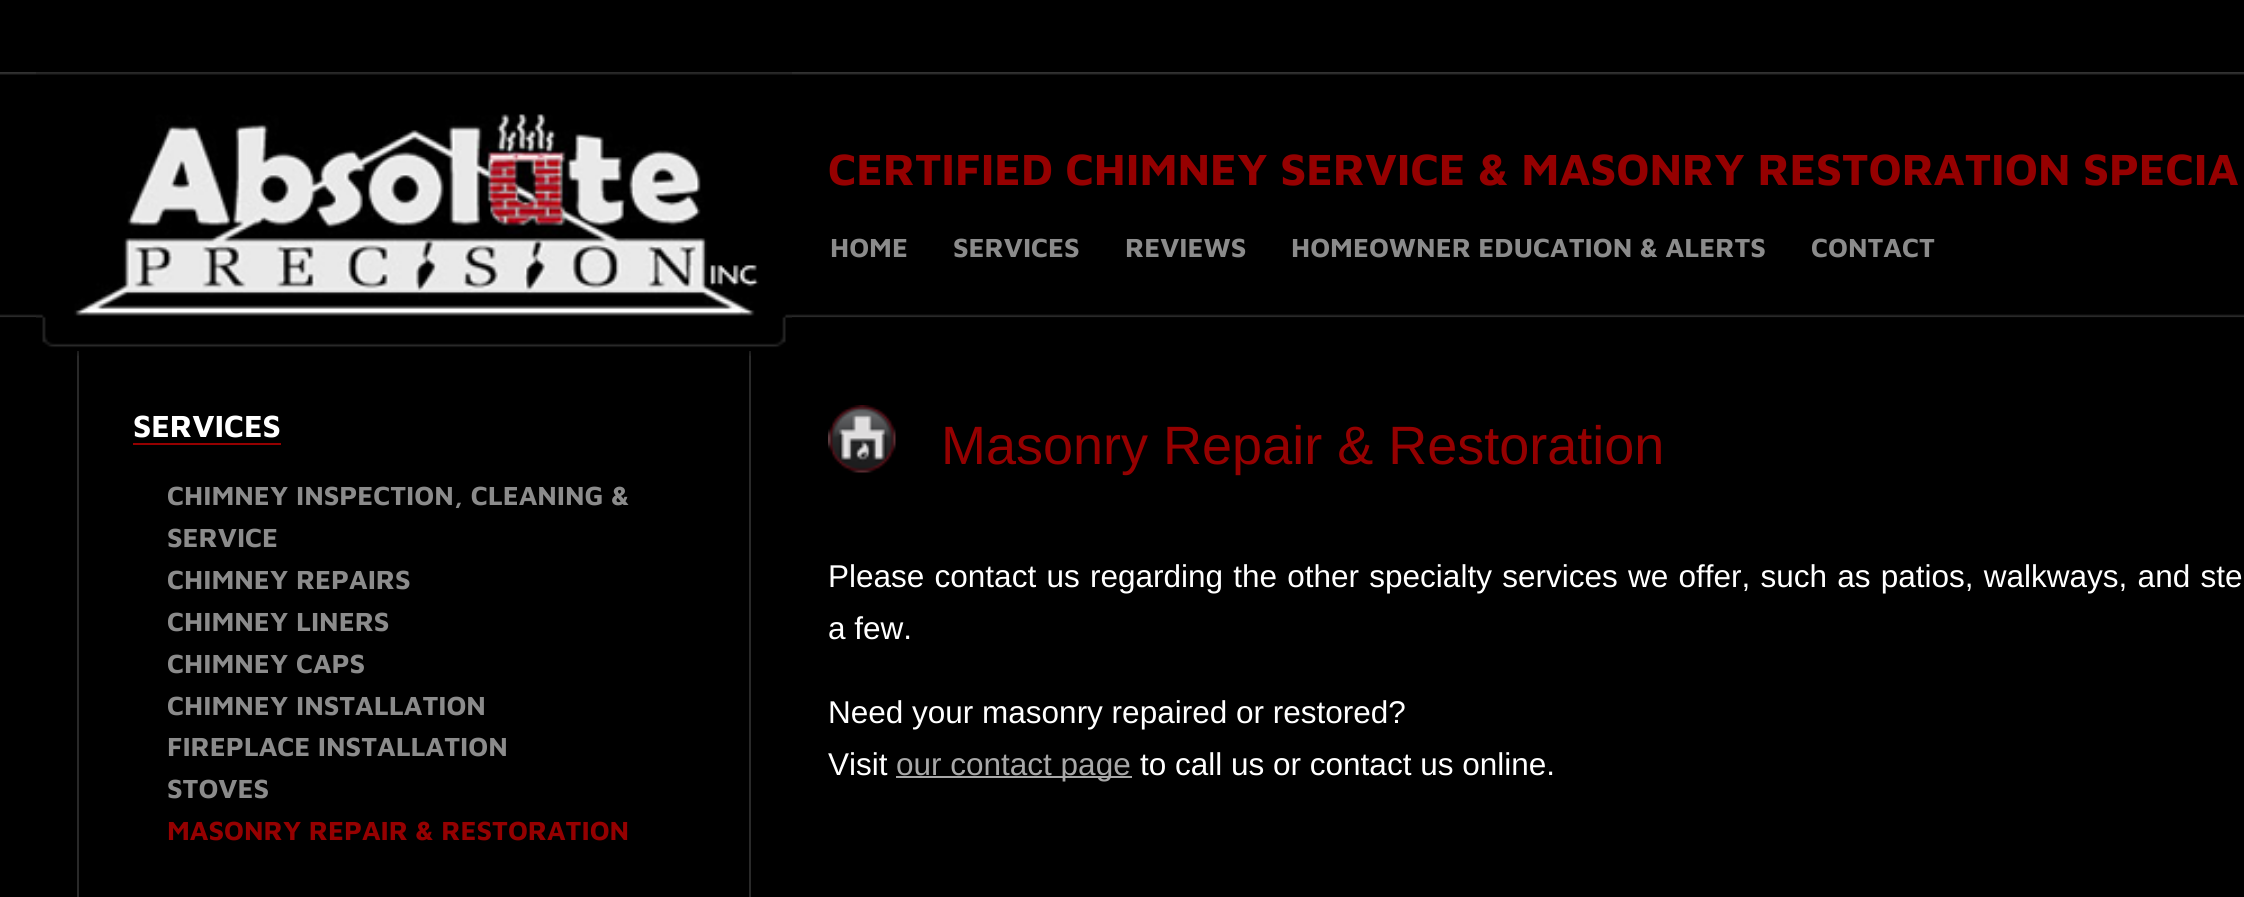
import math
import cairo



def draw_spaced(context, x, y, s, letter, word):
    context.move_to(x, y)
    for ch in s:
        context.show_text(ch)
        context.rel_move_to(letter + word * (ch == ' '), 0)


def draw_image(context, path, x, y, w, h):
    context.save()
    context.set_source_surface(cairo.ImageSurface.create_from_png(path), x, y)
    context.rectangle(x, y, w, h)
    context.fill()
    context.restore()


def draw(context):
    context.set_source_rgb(0, 0, 0)
    context.paint()
    draw_image(context, "images/1.png", 0, 72, 2244, 245)
    context.set_source_rgb(4 / 255, 4 / 255, 4 / 255)
    context.rectangle(0, 317, 2244, 1)
    context.fill()
    context.set_source_rgb(41 / 255, 41 / 255, 41 / 255)
    context.rectangle(749, 351, 2, 546)
    context.fill()
    context.rectangle(77, 351, 2, 546)
    context.fill()
    draw_image(context, "images/2.png", 36, 72, 756, 284)
    context.set_source_rgb(149 / 255, 0, 0)
    context.rectangle(133, 443, 148, 2)
    context.fill()
    draw_image(context, "images/3.png", 828, 405, 68, 68)
    context.set_source_rgb(168 / 255, 168 / 255, 168 / 255)
    context.rectangle(896, 776, 236, 2)
    context.fill()
    context.select_font_face("Maven Pro", cairo.FontSlant.NORMAL, cairo.FontWeight.BOLD)
    context.set_font_size(45)
    context.set_source_rgb(149 / 255, 0, 0)
    context.move_to(828, 185)
    context.show_text("CERTIFIED CHIMNEY SERVICE & MASONRY RESTORATION SPECIA")
    context.set_font_size(27)
    context.set_source_rgb(139 / 255, 139 / 255, 139 / 255)
    context.move_to(830, 257)
    context.show_text("HOME")
    context.move_to(953, 257)
    context.show_text("SERVICES")
    context.move_to(1125, 257)
    context.show_text("REVIEWS")
    context.move_to(1291, 257)
    context.show_text("HOMEOWNER EDUCATION & ALERTS")
    context.move_to(1811, 257)
    context.show_text("CONTACT")
    context.set_font_size(31.5)
    context.set_source_rgb(1, 1, 1)
    context.move_to(133, 437)
    context.show_text("SERVICES")
    context.set_font_size(27)
    context.set_source_rgb(139 / 255, 139 / 255, 139 / 255)
    context.move_to(167, 505)
    context.show_text("CHIMNEY INSPECTION, CLEANING &")
    context.move_to(167, 547)
    context.show_text("SERVICE")
    context.move_to(167, 589)
    context.show_text("CHIMNEY REPAIRS")
    context.move_to(167, 631)
    context.show_text("CHIMNEY LINERS")
    context.move_to(167, 673)
    context.show_text("CHIMNEY CAPS")
    context.move_to(167, 715)
    context.show_text("CHIMNEY INSTALLATION")
    context.move_to(167, 756)
    context.show_text("FIREPLACE INSTALLATION")
    context.move_to(167, 798)
    context.show_text("STOVES")
    context.set_source_rgb(149 / 255, 0, 0)
    context.move_to(167, 840)
    context.show_text("MASONRY REPAIR & RESTORATION")
    context.select_font_face("Liberation Sans")
    context.set_font_size(54)
    context.move_to(941, 464)
    context.show_text("Masonry Repair & Restoration")
    context.set_font_size(31.5)
    context.set_source_rgb(1, 1, 1)
    draw_spaced(context, 828, 587, "Please contact us regarding the other specialty services we offer, such as patios, walkways, and ste", 0, 1.5)
    context.move_to(828, 639)
    context.show_text("a few.")
    context.move_to(828, 723)
    context.show_text("Need your masonry repaired or restored?")
    context.move_to(828, 775)
    context.show_text("Visit")
    context.set_source_rgb(168 / 255, 168 / 255, 168 / 255)
    context.move_to(896, 775)
    context.show_text("our contact page")
    context.set_source_rgb(1, 1, 1)
    context.move_to(1140, 775)
    context.show_text("to call us or contact us online.")


surface = cairo.ImageSurface(cairo.Format.RGB24, 2244, 897)
context = cairo.Context(surface)
options = cairo.FontOptions()
options.set_hint_metrics(cairo.HintMetrics.OFF)
options.set_hint_style(cairo.HintStyle.NONE)
context.set_font_options(options)
context.set_miter_limit(4)
draw(context)
surface.write_to_png("out.png")
